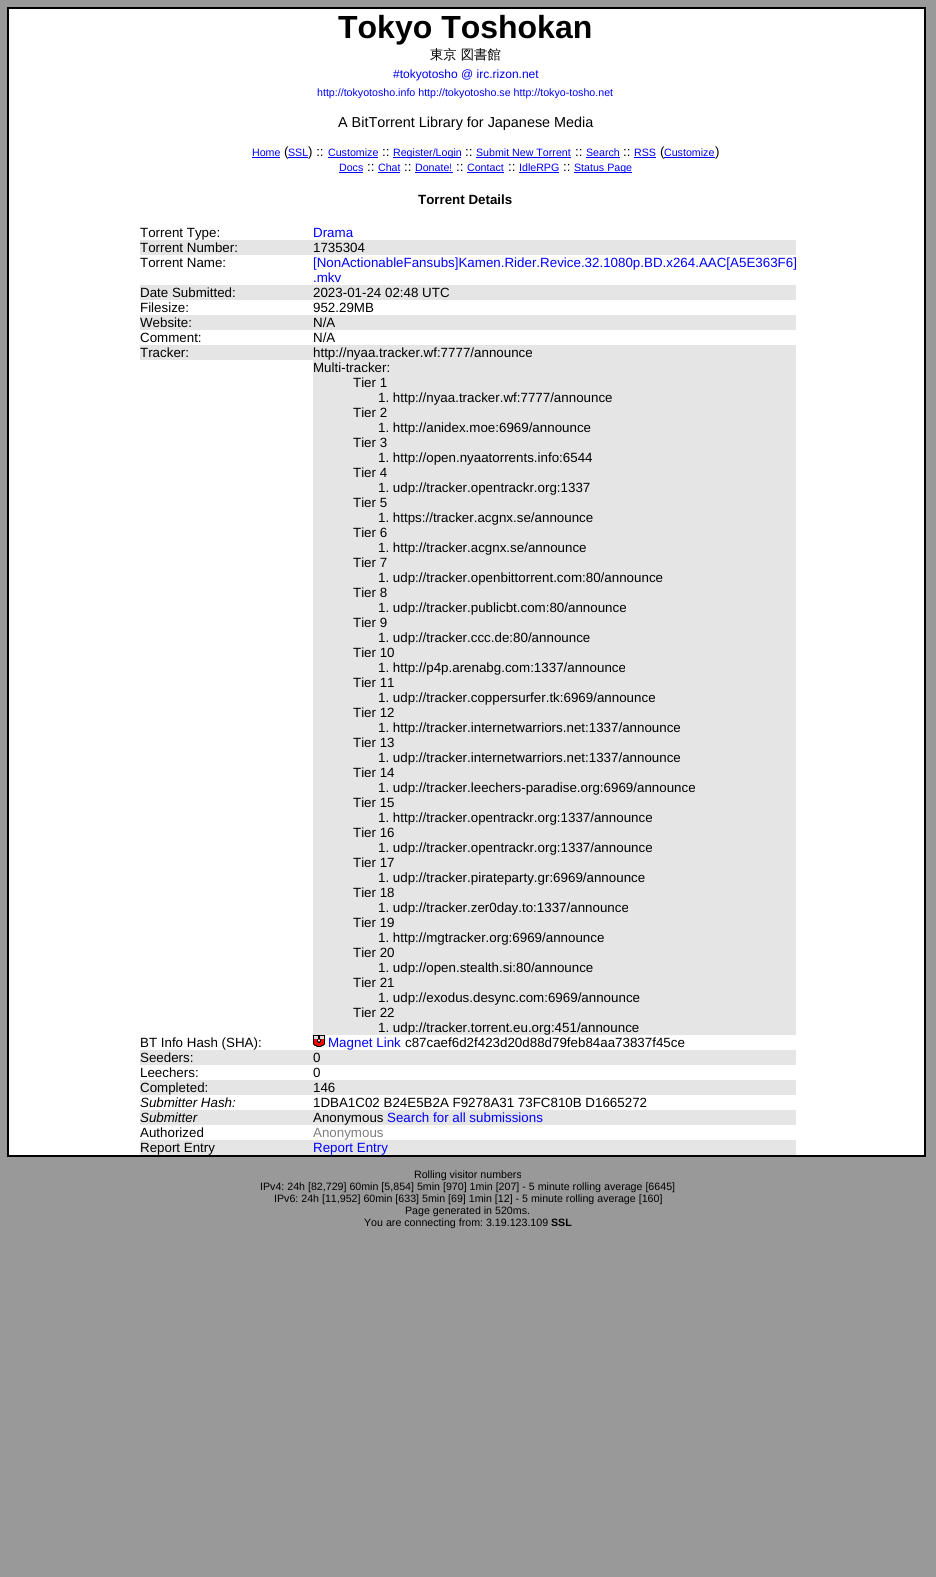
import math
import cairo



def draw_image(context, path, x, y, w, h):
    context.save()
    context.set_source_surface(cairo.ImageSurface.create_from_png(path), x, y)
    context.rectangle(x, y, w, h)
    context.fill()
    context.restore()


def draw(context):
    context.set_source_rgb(153 / 255, 153 / 255, 153 / 255)
    context.paint()
    context.set_source_rgb(1, 1, 1)
    context.rectangle(8, 8, 917, 1148)
    context.fill_preserve()
    context.set_source_rgb(0, 0, 0)
    context.stroke()
    context.set_source_rgb(0, 0, 1)
    context.rectangle(252, 157, 28, 1)
    context.fill()
    context.rectangle(288, 157, 20, 1)
    context.fill()
    context.rectangle(328, 157, 50, 1)
    context.fill()
    context.rectangle(393, 157, 68, 1)
    context.fill()
    context.rectangle(476, 157, 95, 1)
    context.fill()
    context.rectangle(586, 157, 34, 1)
    context.fill()
    context.rectangle(634, 157, 22, 1)
    context.fill()
    context.rectangle(339, 172, 24, 1)
    context.fill()
    context.rectangle(378, 172, 22, 1)
    context.fill()
    context.rectangle(415, 172, 38, 1)
    context.fill()
    context.rectangle(467, 172, 37, 1)
    context.fill()
    context.rectangle(519, 172, 40, 1)
    context.fill()
    context.rectangle(574, 172, 58, 1)
    context.fill()
    context.set_source_rgb(229 / 255, 229 / 255, 229 / 255)
    context.rectangle(140, 240, 656, 15)
    context.fill()
    context.rectangle(140, 285, 656, 15)
    context.fill()
    context.rectangle(140, 315, 656, 15)
    context.fill()
    context.rectangle(140, 345, 173, 15)
    context.fill()
    context.rectangle(313, 345, 483, 690)
    context.fill()
    draw_image(context, "images/1.png", 313, 1035, 12, 12)
    context.rectangle(140, 1050, 656, 15)
    context.fill()
    context.rectangle(140, 1080, 656, 15)
    context.fill()
    context.rectangle(313, 1110, 483, 15)
    context.fill()
    context.rectangle(140, 1140, 656, 15)
    context.fill()
    context.select_font_face("Liberation Sans", cairo.FontSlant.NORMAL, cairo.FontWeight.BOLD)
    context.set_font_size(32)
    context.set_source_rgb(0, 0, 0)
    context.move_to(338, 38)
    context.show_text("Tokyo Toshokan")
    context.select_font_face("WenQuanYi Zen Hei Medium")
    context.set_font_size(13.35)
    context.move_to(430, 59)
    context.show_text("東京 図書館")
    context.select_font_face("Liberation Sans")
    context.set_font_size(12)
    context.set_source_rgb(0, 0, 1)
    context.move_to(393, 78)
    context.show_text("#tokyotosho @ irc.rizon.net")
    context.set_font_size(10.65)
    context.move_to(317, 96)
    context.show_text("http://tokyotosho.info http://tokyotosho.se http://tokyo-tosho.net")
    context.set_font_size(14.4)
    context.set_source_rgb(0, 0, 0)
    context.move_to(338, 127)
    context.show_text("A BitTorrent Library for Japanese Media")
    context.set_font_size(10.65)
    context.set_source_rgb(0, 0, 1)
    context.move_to(252, 156)
    context.show_text("Home")
    context.set_font_size(13.35)
    context.set_source_rgb(0, 0, 0)
    context.move_to(284, 156)
    context.show_text("(")
    context.set_font_size(10.65)
    context.set_source_rgb(0, 0, 1)
    context.move_to(288, 156)
    context.show_text("SSL")
    context.set_font_size(13.35)
    context.set_source_rgb(0, 0, 0)
    context.move_to(308, 156)
    context.show_text(") ::")
    context.set_font_size(10.65)
    context.set_source_rgb(0, 0, 1)
    context.move_to(328, 156)
    context.show_text("Customize")
    context.set_font_size(13.35)
    context.set_source_rgb(0, 0, 0)
    context.move_to(382, 156)
    context.show_text("::")
    context.set_font_size(10.65)
    context.set_source_rgb(0, 0, 1)
    context.move_to(393, 156)
    context.show_text("Register/Login")
    context.set_font_size(13.35)
    context.set_source_rgb(0, 0, 0)
    context.move_to(465, 156)
    context.show_text("::")
    context.set_font_size(10.65)
    context.set_source_rgb(0, 0, 1)
    context.move_to(476, 156)
    context.show_text("Submit New Torrent")
    context.set_font_size(13.35)
    context.set_source_rgb(0, 0, 0)
    context.move_to(575, 156)
    context.show_text("::")
    context.set_font_size(10.65)
    context.set_source_rgb(0, 0, 1)
    context.move_to(586, 156)
    context.show_text("Search")
    context.set_font_size(13.35)
    context.set_source_rgb(0, 0, 0)
    context.move_to(623, 156)
    context.show_text("::")
    context.set_font_size(10.65)
    context.set_source_rgb(0, 0, 1)
    context.move_to(634, 156)
    context.show_text("RSS")
    context.set_font_size(13.35)
    context.set_source_rgb(0, 0, 0)
    context.move_to(660, 156)
    context.show_text("(")
    context.set_source_rgb(0, 0, 1)
    context.rectangle(664, 157, 51, 1)
    context.fill()
    context.set_font_size(10.65)
    context.move_to(664, 156)
    context.show_text("Customize")
    context.set_font_size(13.35)
    context.set_source_rgb(0, 0, 0)
    context.move_to(715, 156)
    context.show_text(")")
    context.set_font_size(10.65)
    context.set_source_rgb(0, 0, 1)
    context.move_to(339, 171)
    context.show_text("Docs")
    context.set_font_size(13.35)
    context.set_source_rgb(0, 0, 0)
    context.move_to(367, 171)
    context.show_text("::")
    context.set_font_size(10.65)
    context.set_source_rgb(0, 0, 1)
    context.move_to(378, 171)
    context.show_text("Chat")
    context.set_font_size(13.35)
    context.set_source_rgb(0, 0, 0)
    context.move_to(404, 171)
    context.show_text("::")
    context.set_font_size(10.65)
    context.set_source_rgb(0, 0, 1)
    context.move_to(415, 171)
    context.show_text("Donate!")
    context.set_font_size(13.35)
    context.set_source_rgb(0, 0, 0)
    context.move_to(456, 171)
    context.show_text("::")
    context.set_font_size(10.65)
    context.set_source_rgb(0, 0, 1)
    context.move_to(467, 171)
    context.show_text("Contact")
    context.set_font_size(13.35)
    context.set_source_rgb(0, 0, 0)
    context.move_to(508, 171)
    context.show_text("::")
    context.set_font_size(10.65)
    context.set_source_rgb(0, 0, 1)
    context.move_to(519, 171)
    context.show_text("IdleRPG")
    context.set_font_size(13.35)
    context.set_source_rgb(0, 0, 0)
    context.move_to(563, 171)
    context.show_text("::")
    context.set_font_size(10.65)
    context.set_source_rgb(0, 0, 1)
    context.move_to(574, 171)
    context.show_text("Status Page")
    context.select_font_face("Liberation Sans", cairo.FontSlant.NORMAL, cairo.FontWeight.BOLD)
    context.set_font_size(13.35)
    context.set_source_rgb(0, 0, 0)
    context.move_to(418, 204)
    context.show_text("Torrent Details")
    context.select_font_face("Liberation Sans")
    context.move_to(140, 237)
    context.show_text("Torrent Type:")
    context.set_source_rgb(0, 0, 1)
    context.move_to(313, 237)
    context.show_text("Drama")
    context.set_source_rgb(0, 0, 0)
    context.move_to(140, 252)
    context.show_text("Torrent Number:")
    context.move_to(313, 252)
    context.show_text("1735304")
    context.move_to(140, 267)
    context.show_text("Torrent Name:")
    context.set_source_rgb(0, 0, 1)
    context.move_to(313, 267)
    context.show_text("[NonActionableFansubs]Kamen.Rider.Revice.32.1080p.BD.x264.AAC[A5E363F6]")
    context.move_to(313, 282)
    context.show_text(".mkv")
    context.set_source_rgb(0, 0, 0)
    context.move_to(140, 297)
    context.show_text("Date Submitted:")
    context.move_to(313, 297)
    context.show_text("2023-01-24 02:48 UTC")
    context.move_to(140, 312)
    context.show_text("Filesize:")
    context.move_to(313, 312)
    context.show_text("952.29MB")
    context.move_to(140, 327)
    context.show_text("Website:")
    context.move_to(313, 327)
    context.show_text("N/A")
    context.move_to(140, 342)
    context.show_text("Comment:")
    context.move_to(313, 342)
    context.show_text("N/A")
    context.move_to(140, 357)
    context.show_text("Tracker:")
    context.move_to(313, 357)
    context.show_text("http://nyaa.tracker.wf:7777/announce")
    context.move_to(313, 372)
    context.show_text("Multi-tracker:")
    context.move_to(353, 387)
    context.show_text("Tier 1")
    context.move_to(378, 402)
    context.show_text("1. http://nyaa.tracker.wf:7777/announce")
    context.move_to(353, 417)
    context.show_text("Tier 2")
    context.move_to(378, 432)
    context.show_text("1. http://anidex.moe:6969/announce")
    context.move_to(353, 447)
    context.show_text("Tier 3")
    context.move_to(378, 462)
    context.show_text("1. http://open.nyaatorrents.info:6544")
    context.move_to(353, 477)
    context.show_text("Tier 4")
    context.move_to(378, 492)
    context.show_text("1. udp://tracker.opentrackr.org:1337")
    context.move_to(353, 507)
    context.show_text("Tier 5")
    context.move_to(378, 522)
    context.show_text("1. https://tracker.acgnx.se/announce")
    context.move_to(353, 537)
    context.show_text("Tier 6")
    context.move_to(378, 552)
    context.show_text("1. http://tracker.acgnx.se/announce")
    context.move_to(353, 567)
    context.show_text("Tier 7")
    context.move_to(378, 582)
    context.show_text("1. udp://tracker.openbittorrent.com:80/announce")
    context.move_to(353, 597)
    context.show_text("Tier 8")
    context.move_to(378, 612)
    context.show_text("1. udp://tracker.publicbt.com:80/announce")
    context.move_to(353, 627)
    context.show_text("Tier 9")
    context.move_to(378, 642)
    context.show_text("1. udp://tracker.ccc.de:80/announce")
    context.move_to(353, 657)
    context.show_text("Tier 10")
    context.move_to(378, 672)
    context.show_text("1. http://p4p.arenabg.com:1337/announce")
    context.move_to(353, 687)
    context.show_text("Tier 11")
    context.move_to(378, 702)
    context.show_text("1. udp://tracker.coppersurfer.tk:6969/announce")
    context.move_to(353, 717)
    context.show_text("Tier 12")
    context.move_to(378, 732)
    context.show_text("1. http://tracker.internetwarriors.net:1337/announce")
    context.move_to(353, 747)
    context.show_text("Tier 13")
    context.move_to(378, 762)
    context.show_text("1. udp://tracker.internetwarriors.net:1337/announce")
    context.move_to(353, 777)
    context.show_text("Tier 14")
    context.move_to(378, 792)
    context.show_text("1. udp://tracker.leechers-paradise.org:6969/announce")
    context.move_to(353, 807)
    context.show_text("Tier 15")
    context.move_to(378, 822)
    context.show_text("1. http://tracker.opentrackr.org:1337/announce")
    context.move_to(353, 837)
    context.show_text("Tier 16")
    context.move_to(378, 852)
    context.show_text("1. udp://tracker.opentrackr.org:1337/announce")
    context.move_to(353, 867)
    context.show_text("Tier 17")
    context.move_to(378, 882)
    context.show_text("1. udp://tracker.pirateparty.gr:6969/announce")
    context.move_to(353, 897)
    context.show_text("Tier 18")
    context.move_to(378, 912)
    context.show_text("1. udp://tracker.zer0day.to:1337/announce")
    context.move_to(353, 927)
    context.show_text("Tier 19")
    context.move_to(378, 942)
    context.show_text("1. http://mgtracker.org:6969/announce")
    context.move_to(353, 957)
    context.show_text("Tier 20")
    context.move_to(378, 972)
    context.show_text("1. udp://open.stealth.si:80/announce")
    context.move_to(353, 987)
    context.show_text("Tier 21")
    context.move_to(378, 1002)
    context.show_text("1. udp://exodus.desync.com:6969/announce")
    context.move_to(353, 1017)
    context.show_text("Tier 22")
    context.move_to(378, 1032)
    context.show_text("1. udp://tracker.torrent.eu.org:451/announce")
    context.move_to(140, 1047)
    context.show_text("BT Info Hash (SHA):")
    context.set_source_rgb(0, 0, 1)
    context.move_to(328, 1047)
    context.show_text("Magnet Link")
    context.set_source_rgb(0, 0, 0)
    context.move_to(405, 1047)
    context.show_text("c87caef6d2f423d20d88d79feb84aa73837f45ce")
    context.move_to(140, 1062)
    context.show_text("Seeders:")
    context.move_to(313, 1062)
    context.show_text("0")
    context.move_to(140, 1077)
    context.show_text("Leechers:")
    context.move_to(313, 1077)
    context.show_text("0")
    context.move_to(140, 1092)
    context.show_text("Completed:")
    context.move_to(313, 1092)
    context.show_text("146")
    context.select_font_face("Liberation Sans", cairo.FontSlant.ITALIC)
    context.move_to(140, 1107)
    context.show_text("Submitter Hash:")
    context.select_font_face("Liberation Sans")
    context.move_to(313, 1107)
    context.show_text("1DBA1C02 B24E5B2A F9278A31 73FC810B D1665272")
    context.move_to(313, 1122)
    context.show_text("Anonymous")
    context.set_source_rgb(229 / 255, 229 / 255, 229 / 255)
    context.rectangle(140, 1110, 173, 15)
    context.fill()
    context.select_font_face("Liberation Sans", cairo.FontSlant.ITALIC)
    context.set_source_rgb(0, 0, 0)
    context.move_to(140, 1122)
    context.show_text("Submitter")
    context.select_font_face("Liberation Sans")
    context.set_source_rgb(0, 0, 1)
    context.move_to(387, 1122)
    context.show_text("Search for all submissions")
    context.set_source_rgb(0, 0, 0)
    context.move_to(140, 1137)
    context.show_text("Authorized")
    context.set_source_rgb(128 / 255, 128 / 255, 128 / 255)
    context.move_to(313, 1137)
    context.show_text("Anonymous")
    context.set_source_rgb(0, 0, 0)
    context.move_to(140, 1152)
    context.show_text("Report Entry")
    context.set_source_rgb(0, 0, 1)
    context.move_to(313, 1152)
    context.show_text("Report Entry")
    context.set_font_size(10.65)
    context.set_source_rgb(0, 0, 0)
    context.move_to(414, 1178)
    context.show_text("Rolling visitor numbers")
    context.move_to(260, 1190)
    context.show_text("IPv4: 24h [82,729] 60min [5,854] 5min [970] 1min [207] - 5 minute rolling average [6645]")
    context.move_to(274, 1202)
    context.show_text("IPv6: 24h [11,952] 60min [633] 5min [69] 1min [12] - 5 minute rolling average [160]")
    context.move_to(405, 1214)
    context.show_text("Page generated in 520ms.")
    context.move_to(364, 1226)
    context.show_text("You are connecting from: 3.19.123.109")
    context.select_font_face("Liberation Sans", cairo.FontSlant.NORMAL, cairo.FontWeight.BOLD)
    context.move_to(551, 1226)
    context.show_text("SSL")


surface = cairo.ImageSurface(cairo.Format.RGB24, 936, 1577)
context = cairo.Context(surface)
options = cairo.FontOptions()
options.set_hint_metrics(cairo.HintMetrics.OFF)
options.set_hint_style(cairo.HintStyle.NONE)
context.set_font_options(options)
context.set_miter_limit(4)
draw(context)
surface.write_to_png("out.png")
